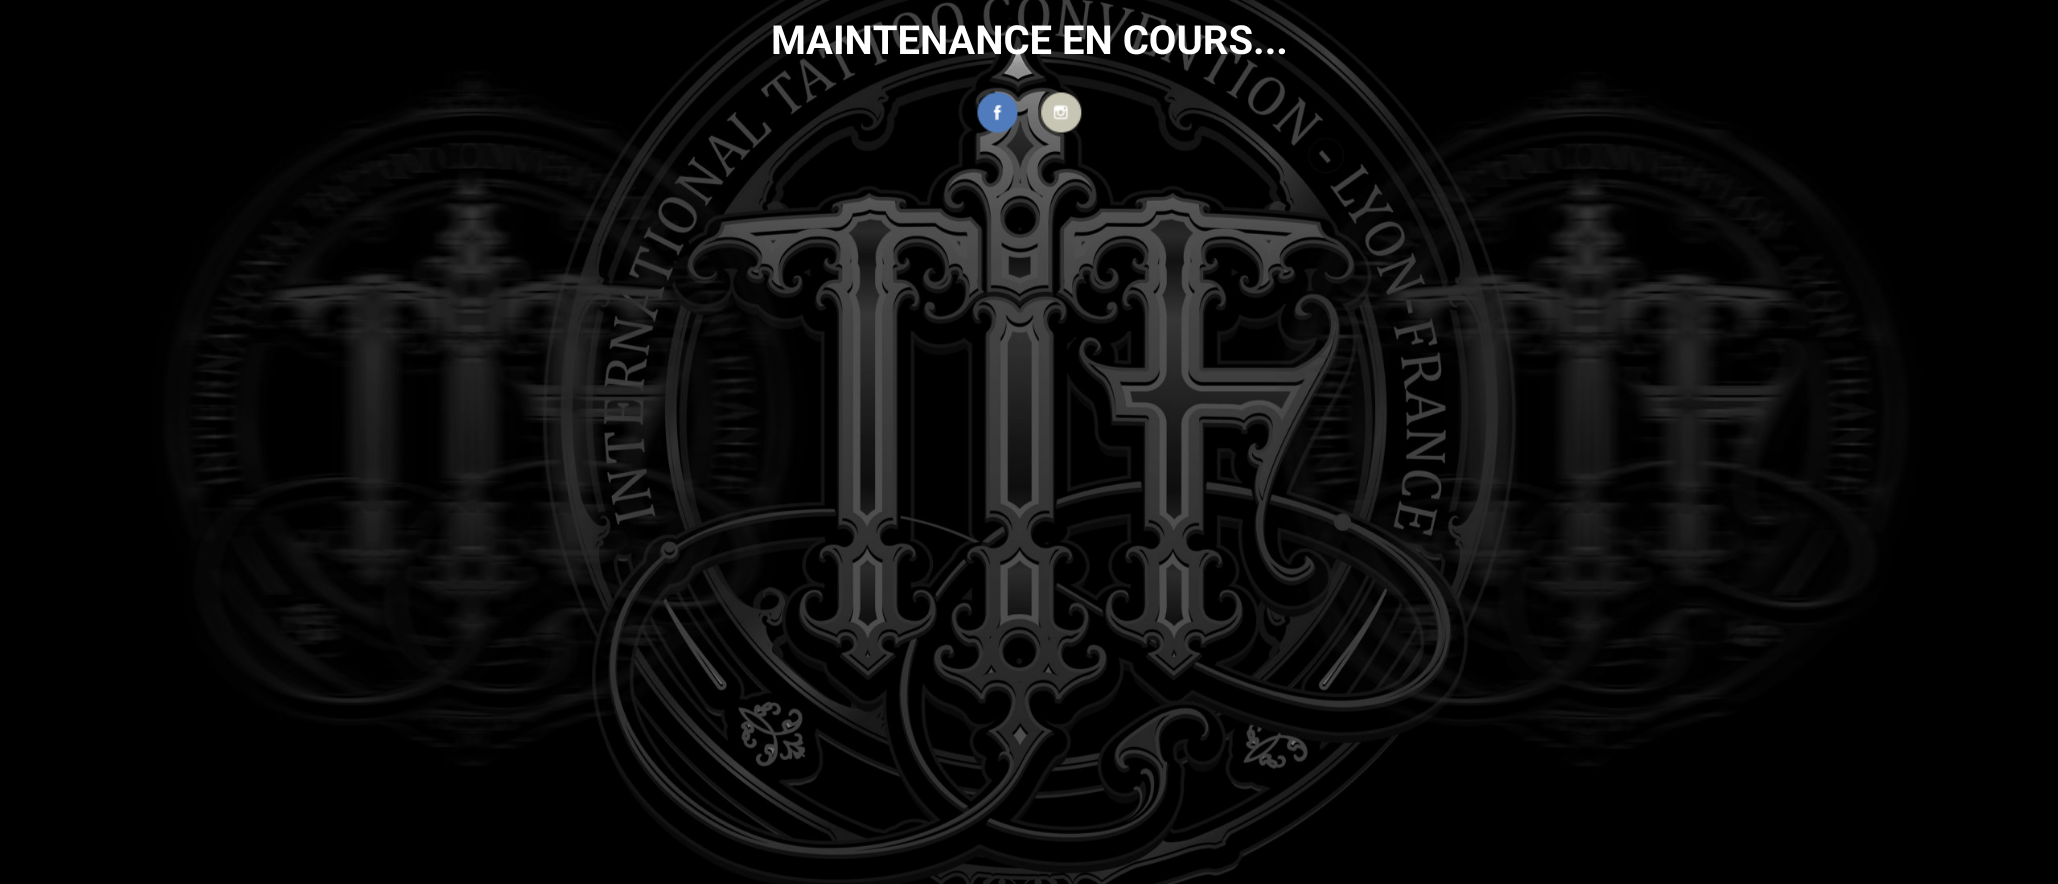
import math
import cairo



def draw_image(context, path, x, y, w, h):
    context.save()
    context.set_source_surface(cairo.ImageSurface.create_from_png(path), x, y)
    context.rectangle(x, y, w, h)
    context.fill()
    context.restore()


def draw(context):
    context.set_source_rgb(1, 1, 1)
    context.paint()
    draw_image(context, "images/1.png", 0, 0, 2058, 884)
    draw_image(context, "images/2.png", 977, 92, 41, 41)
    draw_image(context, "images/3.png", 1041, 92, 41, 41)
    context.select_font_face("Roboto", cairo.FontSlant.NORMAL, cairo.FontWeight.BOLD)
    context.set_font_size(40)
    context.set_source_rgb(1, 1, 1)
    context.move_to(771, 54)
    context.show_text("MAINTENANCE EN COURS...")


surface = cairo.ImageSurface(cairo.Format.RGB24, 2058, 884)
context = cairo.Context(surface)
options = cairo.FontOptions()
options.set_hint_metrics(cairo.HintMetrics.OFF)
options.set_hint_style(cairo.HintStyle.NONE)
context.set_font_options(options)
context.set_miter_limit(4)
draw(context)
surface.write_to_png("out.png")
